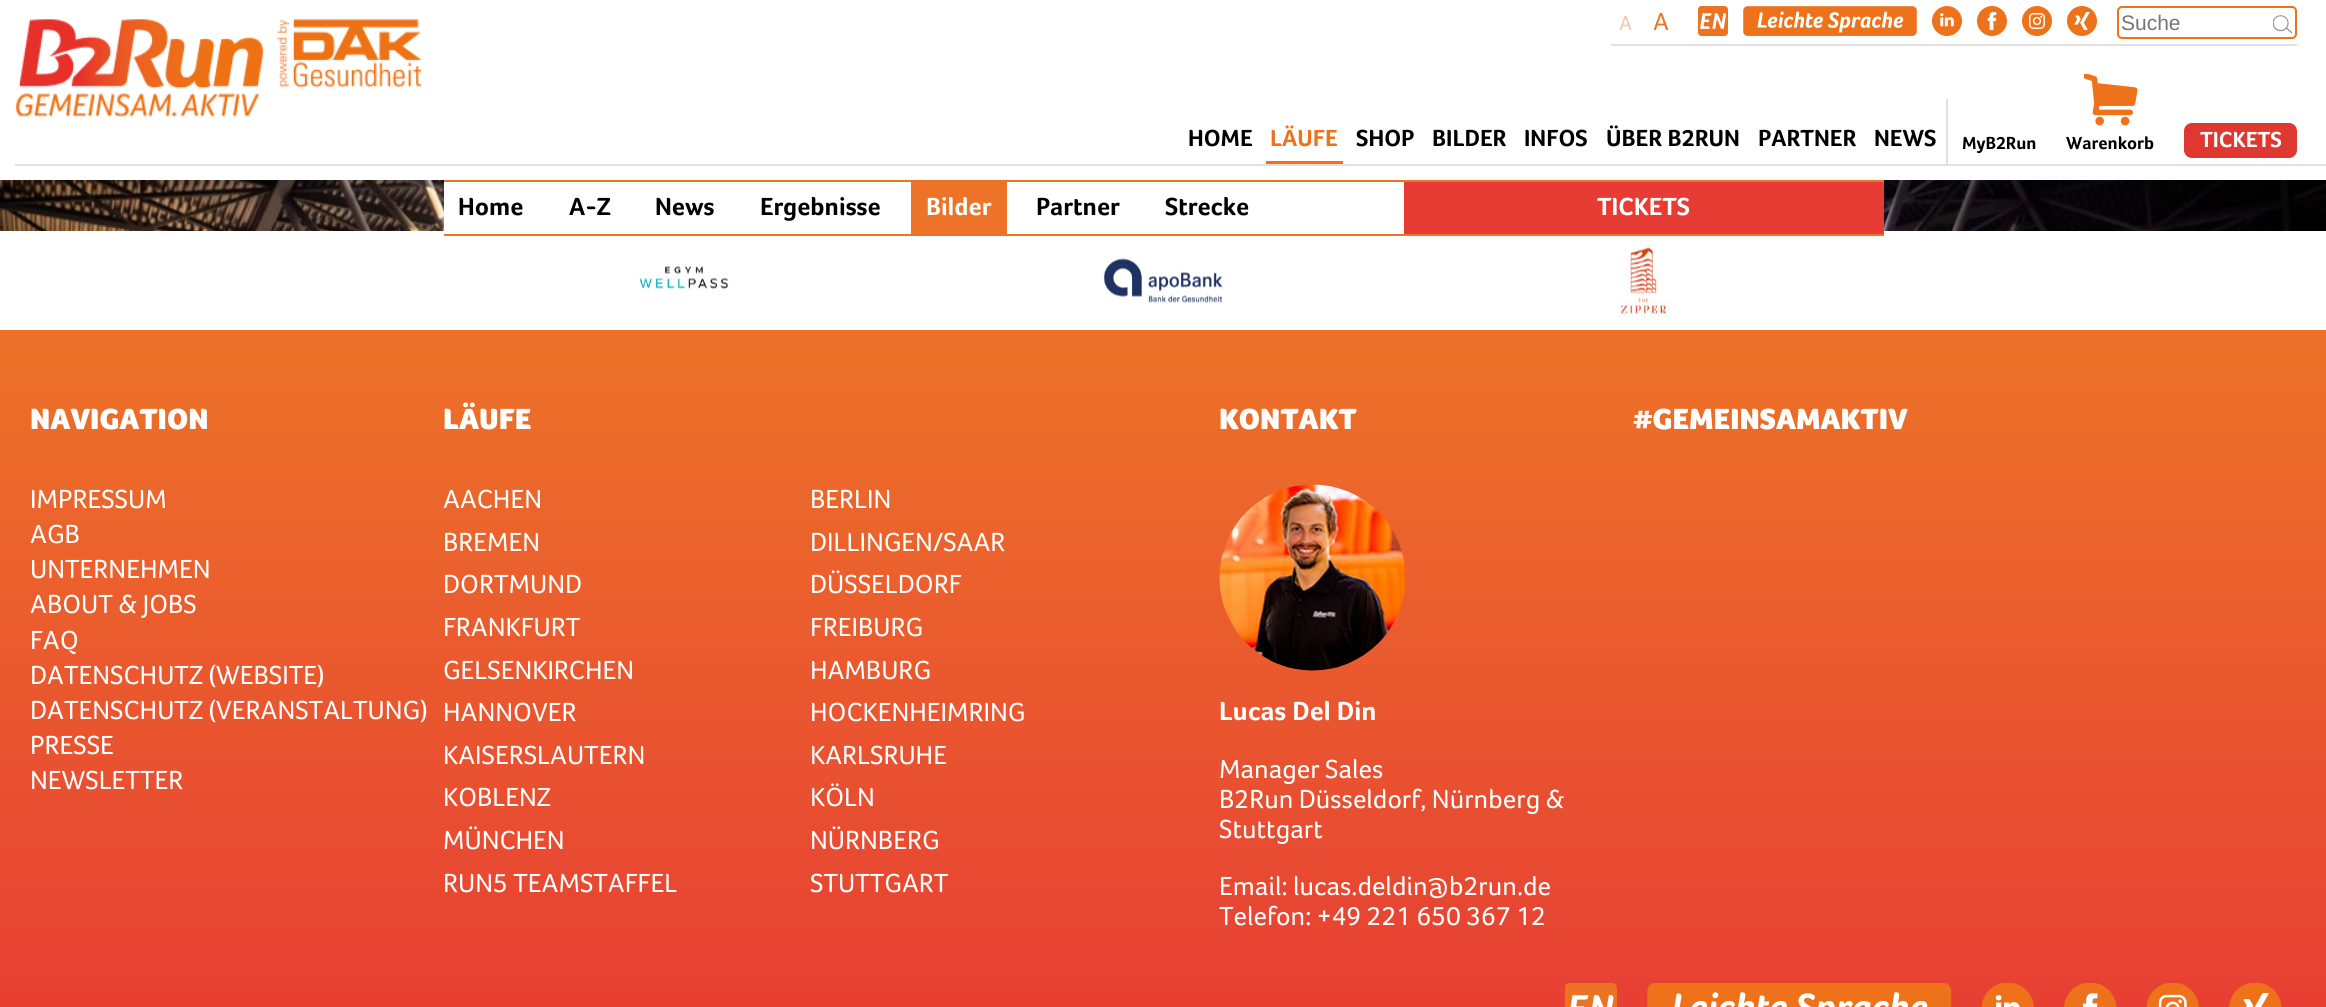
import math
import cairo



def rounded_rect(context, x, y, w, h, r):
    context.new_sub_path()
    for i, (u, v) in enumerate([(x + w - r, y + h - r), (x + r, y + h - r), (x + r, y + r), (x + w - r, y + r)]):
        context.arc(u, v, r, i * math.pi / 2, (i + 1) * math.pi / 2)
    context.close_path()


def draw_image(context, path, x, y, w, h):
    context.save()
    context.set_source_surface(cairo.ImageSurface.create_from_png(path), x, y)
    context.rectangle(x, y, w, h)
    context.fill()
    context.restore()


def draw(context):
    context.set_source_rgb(1, 1, 1)
    context.paint()
    draw_image(context, "images/1.png", 16, 19, 406, 99)
    context.set_source_rgb(224 / 255, 224 / 255, 224 / 255)
    context.rectangle(1611, 44, 686, 2)
    context.fill()
    draw_image(context, "images/2.png", 1698, 6, 30, 30)
    draw_image(context, "images/3.png", 1743, 6, 174, 30)
    draw_image(context, "images/4.png", 1932, 6, 30, 30)
    draw_image(context, "images/5.png", 1977, 6, 30, 30)
    draw_image(context, "images/6.png", 2022, 6, 30, 30)
    draw_image(context, "images/7.png", 2067, 6, 30, 30)
    rounded_rect(context, 2118, 7, 178, 31, 4)
    context.set_source_rgb(238 / 255, 114 / 255, 25 / 255)
    context.stroke()
    draw_image(context, "images/8.png", 2273, 15, 19, 19)
    context.set_source_rgb(224 / 255, 224 / 255, 224 / 255)
    context.rectangle(1946, 99, 2, 65)
    context.fill()
    context.set_source_rgb(238 / 255, 114 / 255, 25 / 255)
    context.rectangle(1266, 161, 77, 3)
    context.fill()
    draw_image(context, "images/9.png", 2084, 74, 54, 52)
    context.set_source_rgb(222 / 255, 56 / 255, 49 / 255)
    rounded_rect(context, 2184, 123, 113, 35, 8)
    context.fill()
    context.set_source_rgb(224 / 255, 224 / 255, 224 / 255)
    context.rectangle(15, 164, 2311, 2)
    context.fill()
    draw_image(context, "images/10.png", 0, 180, 2326, 51)
    context.set_source_rgb(1, 1, 1)
    context.rectangle(444, 182, 960, 49)
    context.fill()
    context.set_source_rgb(237 / 255, 115 / 255, 41 / 255)
    context.rectangle(444, 180, 1440, 2)
    context.fill()
    context.rectangle(444, 234, 1440, 2)
    context.fill()
    context.rectangle(911, 182, 96, 52)
    context.fill()
    context.set_source_rgb(230 / 255, 60 / 255, 52 / 255)
    context.rectangle(1404, 182, 480, 52)
    context.fill()
    draw_image(context, "images/11.png", 639, 266, 89, 23)
    draw_image(context, "images/12.png", 1103, 258, 120, 45)
    draw_image(context, "images/13.png", 1620, 245, 50, 71)
    gradient = cairo.LinearGradient(1163, 330, 1163, 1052)
    gradient.add_color_stop_rgba(0, 237 / 255, 115 / 255, 41 / 255, 1)
    gradient.add_color_stop_rgba(1, 230 / 255, 60 / 255, 52 / 255, 1)
    context.set_source(gradient)
    context.rectangle(0, 330, 2326, 677)
    context.fill()
    draw_image(context, "images/14.png", 1219, 484, 187, 187)
    draw_image(context, "images/15.png", 1565, 983, 52, 24)
    draw_image(context, "images/16.png", 1647, 983, 305, 24)
    draw_image(context, "images/17.png", 1982, 983, 52, 24)
    draw_image(context, "images/18.png", 2064, 983, 53, 24)
    draw_image(context, "images/19.png", 2147, 983, 52, 24)
    draw_image(context, "images/20.png", 2229, 983, 53, 24)
    context.select_font_face("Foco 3")
    context.set_font_size(21)
    context.set_source_rgb(248 / 255, 199 / 255, 169 / 255)
    context.move_to(1619, 30)
    context.show_text("A")
    context.set_font_size(25.5)
    context.set_source_rgb(237 / 255, 115 / 255, 41 / 255)
    context.move_to(1653, 30)
    context.show_text("A")
    context.select_font_face("Liberation Sans")
    context.set_font_size(21)
    context.set_source_rgb(117 / 255, 117 / 255, 117 / 255)
    context.move_to(2121, 30)
    context.show_text("Suche")
    context.select_font_face("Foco")
    context.set_font_size(24)
    context.set_source_rgb(0, 0, 0)
    context.move_to(1188, 146)
    context.show_text("HOME")
    context.set_source_rgb(238 / 255, 114 / 255, 25 / 255)
    context.move_to(1270, 146)
    context.show_text("LÄUFE")
    context.set_source_rgb(0, 0, 0)
    context.move_to(1356, 146)
    context.show_text("SHOP")
    context.move_to(1432, 146)
    context.show_text("BILDER")
    context.move_to(1524, 146)
    context.show_text("INFOS")
    context.move_to(1606, 146)
    context.show_text("ÜBER B2RUN")
    context.move_to(1758, 146)
    context.show_text("PARTNER")
    context.move_to(1874, 146)
    context.show_text("NEWS")
    context.set_font_size(18)
    context.move_to(1962, 149)
    context.show_text("MyB2Run")
    context.move_to(2066, 149)
    context.show_text("Warenkorb")
    context.set_font_size(22.5)
    context.set_source_rgb(1, 1, 1)
    context.move_to(2200, 147)
    context.show_text("TICKETS")
    context.set_font_size(25.5)
    context.set_source_rgb(0, 0, 0)
    context.move_to(458, 215)
    context.show_text("Home")
    context.move_to(569, 215)
    context.show_text("A-Z")
    context.move_to(655, 215)
    context.show_text("News")
    context.move_to(760, 215)
    context.show_text("Ergebnisse")
    context.set_source_rgb(1, 1, 1)
    context.move_to(926, 215)
    context.show_text("Bilder")
    context.set_source_rgb(0, 0, 0)
    context.move_to(1036, 215)
    context.show_text("Partner")
    context.move_to(1165, 215)
    context.show_text("Strecke")
    context.set_source_rgb(1, 1, 1)
    context.move_to(1597, 215)
    context.show_text("TICKETS")
    context.select_font_face("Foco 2")
    context.set_font_size(30)
    context.move_to(30, 429)
    context.show_text("NAVIGATION")
    context.select_font_face("Foco 3")
    context.set_font_size(27)
    context.move_to(30, 508)
    context.show_text("IMPRESSUM")
    context.move_to(30, 543)
    context.show_text("AGB")
    context.move_to(30, 578)
    context.show_text("UNTERNEHMEN")
    context.move_to(30, 613)
    context.show_text("ABOUT & JOBS")
    context.move_to(30, 649)
    context.show_text("FAQ")
    context.move_to(30, 684)
    context.show_text("DATENSCHUTZ (WEBSITE)")
    context.move_to(30, 719)
    context.show_text("DATENSCHUTZ (VERANSTALTUNG)")
    context.move_to(30, 754)
    context.show_text("PRESSE")
    context.move_to(30, 789)
    context.show_text("NEWSLETTER")
    context.select_font_face("Foco 2")
    context.set_font_size(30)
    context.move_to(443, 429)
    context.show_text("LÄUFE")
    context.select_font_face("Foco 3")
    context.set_font_size(27)
    context.move_to(443, 508)
    context.show_text("AACHEN")
    context.move_to(810, 508)
    context.show_text("BERLIN")
    context.move_to(443, 551)
    context.show_text("BREMEN")
    context.move_to(810, 551)
    context.show_text("DILLINGEN/SAAR")
    context.move_to(443, 593)
    context.show_text("DORTMUND")
    context.move_to(810, 593)
    context.show_text("DÜSSELDORF")
    context.move_to(443, 636)
    context.show_text("FRANKFURT")
    context.move_to(810, 636)
    context.show_text("FREIBURG")
    context.move_to(443, 679)
    context.show_text("GELSENKIRCHEN")
    context.move_to(810, 679)
    context.show_text("HAMBURG")
    context.move_to(443, 721)
    context.show_text("HANNOVER")
    context.move_to(810, 721)
    context.show_text("HOCKENHEIMRING")
    context.move_to(443, 764)
    context.show_text("KAISERSLAUTERN")
    context.move_to(810, 764)
    context.show_text("KARLSRUHE")
    context.move_to(443, 806)
    context.show_text("KOBLENZ")
    context.move_to(810, 806)
    context.show_text("KÖLN")
    context.move_to(443, 849)
    context.show_text("MÜNCHEN")
    context.move_to(810, 849)
    context.show_text("NÜRNBERG")
    context.move_to(443, 892)
    context.show_text("RUN5 TEAMSTAFFEL")
    context.move_to(810, 892)
    context.show_text("STUTTGART")
    context.select_font_face("Foco 2")
    context.set_font_size(30)
    context.move_to(1219, 429)
    context.show_text("KONTAKT")
    context.select_font_face("Foco")
    context.set_font_size(27)
    context.move_to(1219, 720)
    context.show_text("Lucas Del Din")
    context.select_font_face("Foco 3")
    context.move_to(1219, 778)
    context.show_text("Manager Sales")
    context.move_to(1219, 808)
    context.show_text("B2Run Düsseldorf, Nürnberg &")
    context.move_to(1219, 838)
    context.show_text("Stuttgart")
    context.move_to(1219, 895)
    context.show_text("Email: lucas.deldin@b2run.de")
    context.move_to(1219, 925)
    context.show_text("Telefon: +49 221 650 367 12")
    context.select_font_face("Foco 2")
    context.set_font_size(30)
    context.move_to(1633, 429)
    context.show_text("#GEMEINSAMAKTIV")


surface = cairo.ImageSurface(cairo.Format.RGB24, 2326, 1007)
context = cairo.Context(surface)
options = cairo.FontOptions()
options.set_hint_metrics(cairo.HintMetrics.OFF)
options.set_hint_style(cairo.HintStyle.NONE)
context.set_font_options(options)
context.set_miter_limit(4)
draw(context)
surface.write_to_png("out.png")
